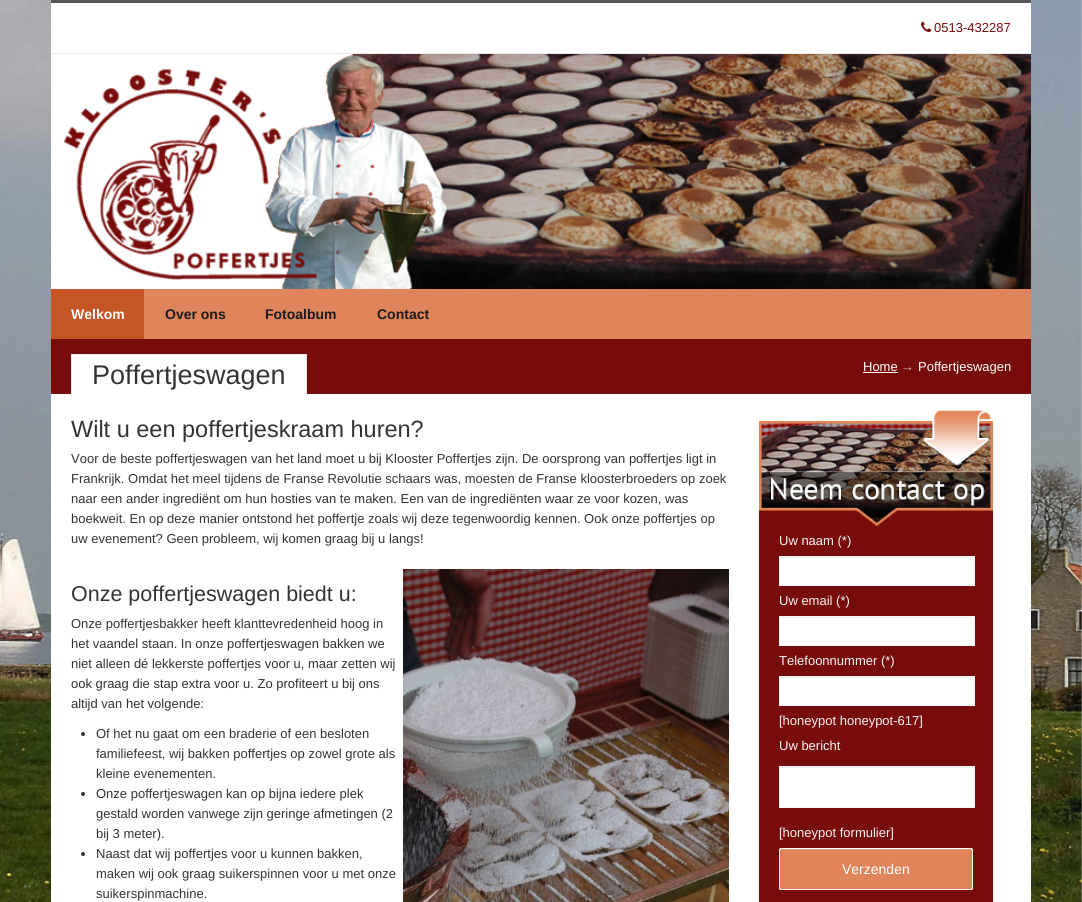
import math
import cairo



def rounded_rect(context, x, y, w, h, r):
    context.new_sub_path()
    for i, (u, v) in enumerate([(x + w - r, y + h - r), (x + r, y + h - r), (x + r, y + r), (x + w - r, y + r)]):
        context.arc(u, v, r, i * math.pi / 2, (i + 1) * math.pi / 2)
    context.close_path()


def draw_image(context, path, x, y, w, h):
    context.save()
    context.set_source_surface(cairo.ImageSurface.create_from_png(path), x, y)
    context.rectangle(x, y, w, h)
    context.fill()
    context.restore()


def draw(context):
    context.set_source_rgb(1, 1, 1)
    context.paint()
    draw_image(context, "images/1.png", 0, 0, 1082, 902)
    context.set_source_rgb(1, 1, 1)
    context.rectangle(51, 3, 980, 50)
    context.fill()
    context.set_source_rgb(85 / 255, 85 / 255, 85 / 255)
    context.rectangle(51, 0, 980, 3)
    context.fill()
    draw_image(context, "images/2.png", 921, 21, 11, 11)
    context.set_source_rgb(1, 1, 1)
    context.rectangle(51, 54, 12, 235)
    context.fill()
    context.set_source_rgb(235 / 255, 235 / 255, 235 / 255)
    context.rectangle(51, 53, 980, 1)
    context.fill()
    draw_image(context, "images/3.png", 63, 54, 968, 235)
    context.set_source_rgb(224 / 255, 132 / 255, 92 / 255)
    context.rectangle(144, 289, 887, 50)
    context.fill()
    context.set_source_rgb(197 / 255, 85 / 255, 38 / 255)
    context.rectangle(51, 289, 93, 50)
    context.fill()
    context.set_source_rgb(120 / 255, 12 / 255, 10 / 255)
    context.rectangle(51, 339, 980, 55)
    context.fill()
    context.set_source_rgb(1, 1, 1)
    context.rectangle(72, 355, 234, 39)
    context.fill()
    context.set_source_rgb(235 / 255, 235 / 255, 235 / 255)
    context.rectangle(71, 354, 236, 1)
    context.fill()
    context.set_source_rgb(1, 1, 1)
    context.rectangle(51, 394, 980, 508)
    context.fill()
    context.set_source_rgb(235 / 255, 235 / 255, 235 / 255)
    context.rectangle(306, 354, 1, 42)
    context.fill()
    context.set_source_rgb(1, 1, 1)
    context.rectangle(306, 395, 1, 1)
    context.fill()
    context.set_source_rgb(235 / 255, 235 / 255, 235 / 255)
    context.rectangle(71, 354, 1, 42)
    context.fill()
    context.set_source_rgb(1, 1, 1)
    context.rectangle(863, 372, 35, 1)
    context.fill()
    context.set_source_rgb(51 / 255, 51 / 255, 51 / 255)
    context.arc(83, 734, 2, 0, 2 * math.pi)
    context.fill()
    context.arc(83, 794, 2, 0, 2 * math.pi)
    context.fill()
    context.arc(83, 854, 2, 0, 2 * math.pi)
    context.fill()
    draw_image(context, "images/4.png", 403, 569, 326, 333)
    context.set_source_rgb(120 / 255, 12 / 255, 10 / 255)
    context.rectangle(759, 509, 234, 393)
    context.fill()
    draw_image(context, "images/5.png", 759, 409, 234, 117)
    context.set_source_rgb(1, 1, 1)
    context.rectangle(780, 558, 194, 27)
    context.fill()
    context.set_source_rgb(236 / 255, 236 / 255, 236 / 255)
    context.rectangle(780, 557, 194, 1)
    context.fill()
    context.rectangle(779.5, 556.5, 195, 29)
    context.set_source_rgb(245 / 255, 245 / 255, 245 / 255)
    context.set_line_width(1)
    context.stroke()
    context.set_source_rgb(1, 1, 1)
    context.rectangle(780, 618, 194, 27)
    context.fill()
    context.set_source_rgb(236 / 255, 236 / 255, 236 / 255)
    context.rectangle(780, 617, 194, 1)
    context.fill()
    context.rectangle(779.5, 616.5, 195, 29)
    context.set_source_rgb(245 / 255, 245 / 255, 245 / 255)
    context.stroke()
    context.set_source_rgb(1, 1, 1)
    context.rectangle(780, 678, 194, 27)
    context.fill()
    context.set_source_rgb(236 / 255, 236 / 255, 236 / 255)
    context.rectangle(780, 677, 194, 1)
    context.fill()
    context.rectangle(779.5, 676.5, 195, 29)
    context.set_source_rgb(245 / 255, 245 / 255, 245 / 255)
    context.stroke()
    context.set_source_rgb(1, 1, 1)
    context.rectangle(780, 768, 194, 39)
    context.fill()
    context.set_source_rgb(236 / 255, 236 / 255, 236 / 255)
    context.rectangle(780, 767, 194, 1)
    context.fill()
    context.rectangle(779.5, 766.5, 195, 41)
    context.set_source_rgb(245 / 255, 245 / 255, 245 / 255)
    context.stroke()
    context.set_source_rgb(224 / 255, 132 / 255, 92 / 255)
    rounded_rect(context, 779, 848, 194, 42, 2)
    context.fill()
    context.set_source_rgb(230 / 255, 157 / 255, 125 / 255)
    context.new_path()
    context.move_to(781, 850)
    context.line_to(972, 850)
    context.line_to(972, 851)
    context.curve_to(972, 850, 972, 849, 971, 849)
    context.line_to(780, 849)
    context.line_to(780, 851)
    context.curve_to(780, 850, 780, 850, 781, 850)
    context.close_path()
    context.fill()
    rounded_rect(context, 779.5, 848.5, 193, 41, 1.5)
    context.set_source_rgb(1, 1, 1)
    context.stroke()
    context.select_font_face("Liberation Sans")
    context.set_font_size(13)
    context.set_source_rgb(120 / 255, 12 / 255, 10 / 255)
    context.move_to(934, 32)
    context.show_text("0513-432287")
    context.select_font_face("Liberation Sans", cairo.FontSlant.NORMAL, cairo.FontWeight.BOLD)
    context.set_font_size(14)
    context.set_source_rgb(1, 1, 1)
    context.move_to(71, 319)
    context.show_text("Welkom")
    context.set_source_rgb(28 / 255, 28 / 255, 28 / 255)
    context.move_to(165, 319)
    context.show_text("Over ons")
    context.move_to(265, 319)
    context.show_text("Fotoalbum")
    context.move_to(377, 319)
    context.show_text("Contact")
    context.select_font_face("Liberation Sans")
    context.set_font_size(27)
    context.set_source_rgb(51 / 255, 51 / 255, 51 / 255)
    context.move_to(92, 384)
    context.show_text("Poffertjeswagen")
    context.set_font_size(13)
    context.set_source_rgb(1, 1, 1)
    context.move_to(863, 371)
    context.show_text("Home")
    context.set_source_rgb(204 / 255, 204 / 255, 204 / 255)
    context.move_to(901, 371)
    context.show_text("→")
    context.set_source_rgb(1, 1, 1)
    context.move_to(918, 371)
    context.show_text("Poffertjeswagen")
    context.set_font_size(23.5)
    context.set_source_rgb(51 / 255, 51 / 255, 51 / 255)
    context.move_to(71, 437)
    context.show_text("Wilt u een poffertjeskraam huren?")
    context.set_font_size(13)
    context.move_to(71, 463)
    context.show_text("Voor de beste poffertjeswagen van het land moet u bij Klooster Poffertjes zijn. De oorsprong van poffertjes ligt in")
    context.move_to(71, 483)
    context.show_text("Frankrijk. Omdat het meel tijdens de Franse Revolutie schaars was, moesten de Franse kloosterbroeders op zoek")
    context.move_to(71, 503)
    context.show_text("naar een ander ingrediënt om hun hosties van te maken. Een van de ingrediënten waar ze voor kozen, was")
    context.move_to(71, 523)
    context.show_text("boekweit. En op deze manier ontstond het poffertje zoals wij deze tegenwoordig kennen. Ook onze poffertjes op")
    context.move_to(71, 543)
    context.show_text("uw evenement? Geen probleem, wij komen graag bij u langs!")
    context.set_font_size(21.5)
    context.move_to(71, 601)
    context.show_text("Onze poffertjeswagen biedt u:")
    context.set_font_size(13)
    context.move_to(71, 628)
    context.show_text("Onze poffertjesbakker heeft klanttevredenheid hoog in")
    context.move_to(71, 648)
    context.show_text("het vaandel staan. In onze poffertjeswagen bakken we")
    context.move_to(71, 668)
    context.show_text("niet alleen dé lekkerste poffertjes voor u, maar zetten wij")
    context.move_to(71, 688)
    context.show_text("ook graag die stap extra voor u. Zo profiteert u bij ons")
    context.move_to(71, 708)
    context.show_text("altijd van het volgende:")
    context.move_to(96, 738)
    context.show_text("Of het nu gaat om een braderie of een besloten")
    context.move_to(96, 758)
    context.show_text("familiefeest, wij bakken poffertjes op zowel grote als")
    context.move_to(96, 778)
    context.show_text("kleine evenementen.")
    context.move_to(96, 798)
    context.show_text("Onze poffertjeswagen kan op bijna iedere plek")
    context.move_to(96, 818)
    context.show_text("gestald worden vanwege zijn geringe afmetingen (2")
    context.move_to(96, 838)
    context.show_text("bij 3 meter).")
    context.move_to(96, 858)
    context.show_text("Naast dat wij poffertjes voor u kunnen bakken,")
    context.move_to(96, 878)
    context.show_text("maken wij ook graag suikerspinnen voor u met onze")
    context.move_to(96, 898)
    context.show_text("suikerspinmachine.")
    context.set_source_rgb(245 / 255, 245 / 255, 245 / 255)
    context.move_to(779, 545)
    context.show_text("Uw naam (*)")
    context.move_to(779, 605)
    context.show_text("Uw email (*)")
    context.move_to(779, 665)
    context.show_text("Telefoonnummer (*)")
    context.move_to(779, 725)
    context.show_text("[honeypot honeypot-617]")
    context.move_to(779, 750)
    context.show_text("Uw bericht")
    context.move_to(779, 837)
    context.show_text("[honeypot formulier]")
    context.set_font_size(14)
    context.set_source_rgb(1, 1, 1)
    context.move_to(842, 874)
    context.show_text("Verzenden")


surface = cairo.ImageSurface(cairo.Format.RGB24, 1082, 902)
context = cairo.Context(surface)
options = cairo.FontOptions()
options.set_hint_metrics(cairo.HintMetrics.OFF)
options.set_hint_style(cairo.HintStyle.NONE)
context.set_font_options(options)
context.set_miter_limit(4)
draw(context)
surface.write_to_png("out.png")
